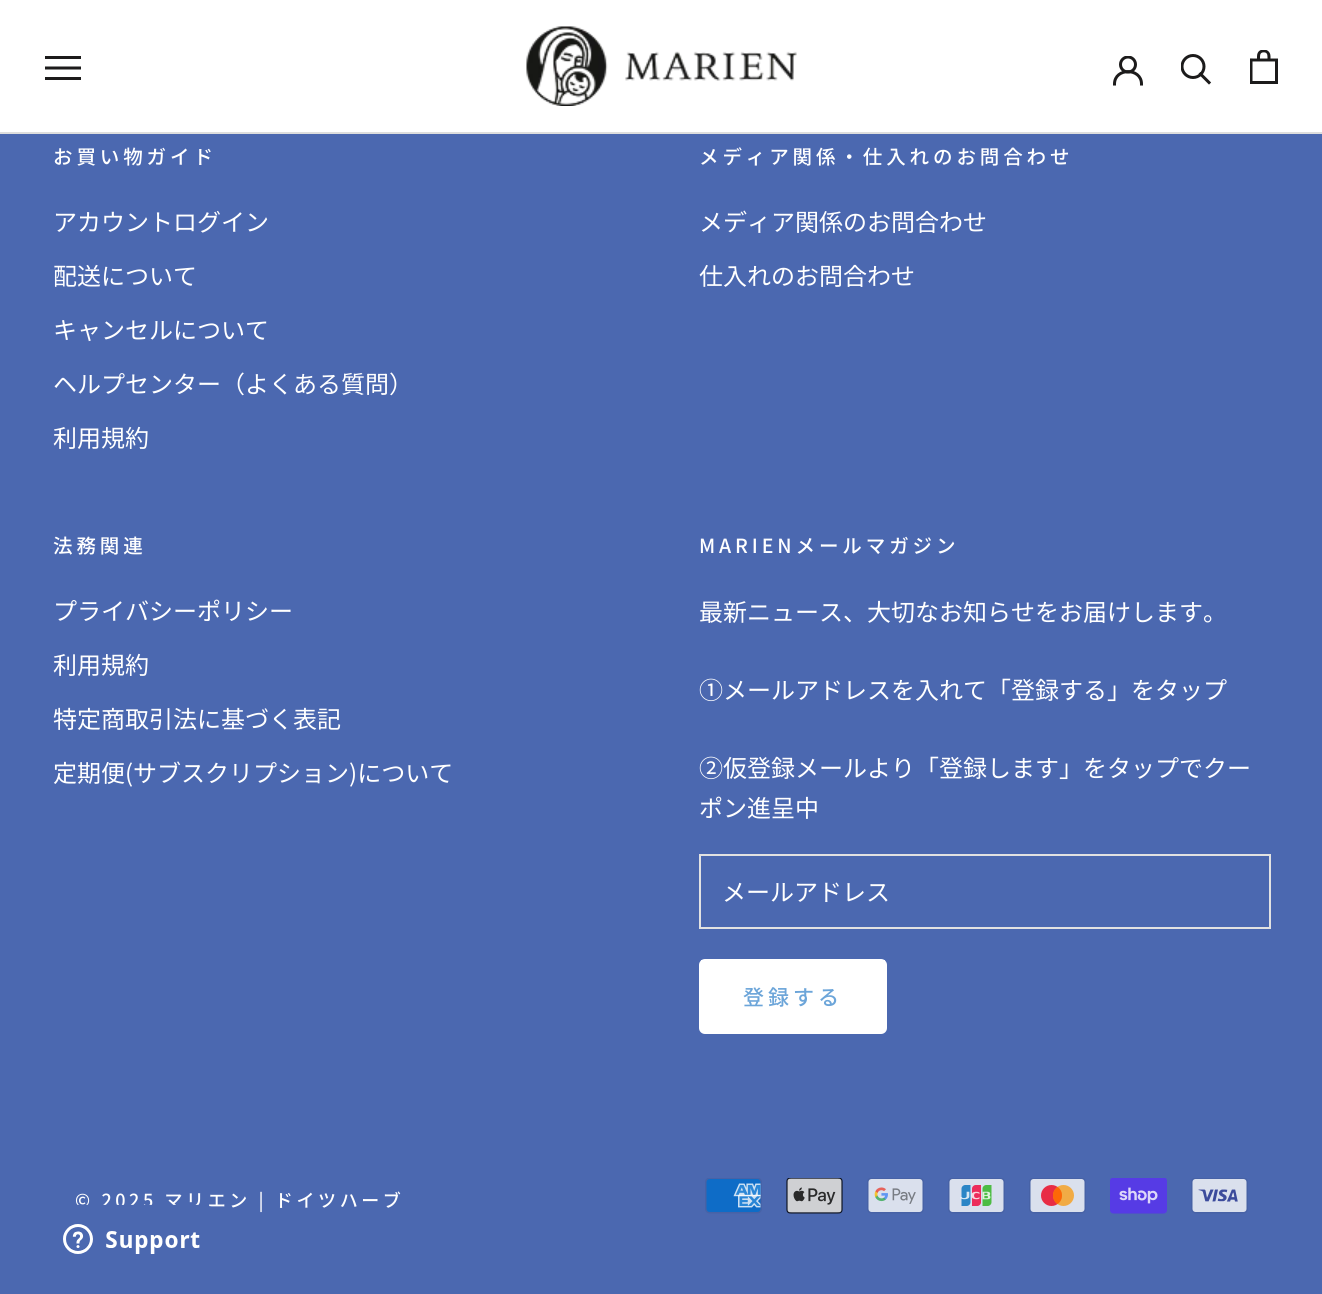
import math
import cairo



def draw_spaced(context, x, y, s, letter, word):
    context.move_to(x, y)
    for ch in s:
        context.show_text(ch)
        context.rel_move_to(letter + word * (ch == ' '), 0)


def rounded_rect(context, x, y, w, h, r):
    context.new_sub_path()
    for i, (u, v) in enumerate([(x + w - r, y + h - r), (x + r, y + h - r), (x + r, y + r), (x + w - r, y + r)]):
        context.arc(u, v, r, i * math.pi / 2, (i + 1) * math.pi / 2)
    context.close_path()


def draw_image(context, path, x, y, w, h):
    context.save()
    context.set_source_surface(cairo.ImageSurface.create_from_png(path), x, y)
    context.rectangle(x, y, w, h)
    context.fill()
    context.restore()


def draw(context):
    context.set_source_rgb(75 / 255, 104 / 255, 176 / 255)
    context.paint()
    context.set_source_rgb(1, 1, 1)
    context.rectangle(0, 0, 1322, 132)
    context.fill()
    context.set_source_rgb(221 / 255, 221 / 255, 221 / 255)
    context.rectangle(0, 132, 1322, 2)
    context.fill()
    context.set_source_rgb(28 / 255, 27 / 255, 27 / 255)
    context.new_path()
    context.move_to(45, 80)
    context.line_to(45, 77)
    context.line_to(81, 77)
    context.line_to(81, 80)
    context.close_path()
    context.move_to(45, 66.5)
    context.line_to(81, 66.5)
    context.line_to(81, 69.5)
    context.line_to(45, 69.5)
    context.close_path()
    context.move_to(45, 56)
    context.line_to(81, 56)
    context.line_to(81, 59)
    context.line_to(45, 59)
    context.close_path()
    context.fill()
    draw_image(context, "images/1.png", 526, 26, 271, 80)
    context.new_path()
    context.move_to(1114.5, 84)
    context.curve_to(1114.5, 67.5, 1141.5, 67.5, 1141.5, 84)
    context.set_line_width(3)
    context.set_line_cap(cairo.LineCap.SQUARE)
    context.stroke()
    context.save()
    context.rectangle(1113, 56, 30, 30)
    context.clip()
    context.arc(1128, 64.5, 7.5, 0, 2 * math.pi)
    context.set_line_cap(cairo.LineCap.BUTT)
    context.stroke()
    context.restore()
    context.new_path()
    context.move_to(1209, 82.5)
    context.line_to(1200.5, 74)
    context.stroke()
    context.save()
    context.rectangle(1181, 54, 31, 32)
    context.clip()
    context.arc(1193, 66.5, 11, 0, 2 * math.pi)
    context.set_line_cap(cairo.LineCap.BUTT)
    context.stroke()
    context.restore()
    draw_image(context, "images/2.png", 1250, 50, 28, 34)
    context.rectangle(700, 855, 570, 73)
    context.set_source_rgb(226 / 255, 226 / 255, 226 / 255)
    context.set_line_width(2)
    context.set_line_cap(cairo.LineCap.BUTT)
    context.stroke()
    context.set_source_rgb(1, 1, 1)
    rounded_rect(context, 699, 959, 188, 75, 6)
    context.fill()
    context.rectangle(701, 960, 184, 1)
    context.fill()
    draw_image(context, "images/3.png", 705, 1178, 57, 36)
    draw_image(context, "images/4.png", 786, 1178, 57, 36)
    draw_image(context, "images/5.png", 867, 1178, 57, 36)
    draw_image(context, "images/6.png", 948, 1178, 57, 36)
    draw_image(context, "images/7.png", 1029, 1178, 57, 36)
    draw_image(context, "images/8.png", 1110, 1178, 57, 36)
    draw_image(context, "images/9.png", 1191, 1178, 57, 36)
    context.select_font_face("Noto Sans JP Medium")
    context.set_font_size(19.5)
    draw_spaced(context, 53, 164, "お買い物ガイド", 3.9, 0)
    context.select_font_face("Noto Sans JP")
    context.set_font_size(24)
    context.move_to(53, 231)
    context.show_text("アカウントログイン")
    context.move_to(53, 285)
    context.show_text("配送について")
    context.move_to(53, 339)
    context.show_text("キャンセルについて")
    context.move_to(53, 393)
    context.show_text("ヘルプセンター（よくある質問）")
    context.move_to(53, 447)
    context.show_text("利用規約")
    context.select_font_face("Noto Sans JP Medium")
    context.set_font_size(19.5)
    draw_spaced(context, 699, 164, "メディア関係・仕入れのお問合わせ", 3.9, 0)
    context.select_font_face("Noto Sans JP")
    context.set_font_size(24)
    context.move_to(699, 231)
    context.show_text("メディア関係のお問合わせ")
    context.move_to(699, 285)
    context.show_text("仕入れのお問合わせ")
    context.select_font_face("Noto Sans JP Medium")
    context.set_font_size(19.5)
    draw_spaced(context, 53, 553, "法務関連", 3.9, 0)
    context.select_font_face("Noto Sans JP")
    context.set_font_size(24)
    context.move_to(53, 620)
    context.show_text("プライバシーポリシー")
    context.move_to(53, 674)
    context.show_text("利用規約")
    context.move_to(53, 728)
    context.show_text("特定商取引法に基づく表記")
    context.move_to(53, 782)
    context.show_text("定期便(サブスクリプション)について")
    context.select_font_face("Noto Sans JP Medium")
    context.set_font_size(19.5)
    draw_spaced(context, 699, 553, "MARIENメールマガジン", 3.9, 0)
    context.select_font_face("Noto Sans JP")
    context.set_font_size(24)
    context.move_to(699, 621)
    context.show_text("最新ニュース、大切なお知らせをお届けします。")
    context.move_to(699, 699)
    context.show_text("①メールアドレスを入れて「登録する」をタップ")
    context.move_to(699, 777)
    context.show_text("②仮登録メールより「登録します」をタップでクー")
    context.move_to(699, 817)
    context.show_text("ポン進呈中")
    context.move_to(722, 901)
    context.show_text("メールアドレス")
    context.select_font_face("Noto Sans JP Medium")
    context.set_font_size(21)
    context.set_source_rgb(108 / 255, 165 / 255, 217 / 255)
    draw_spaced(context, 743, 1005, "登録する", 4, 0)
    context.set_font_size(18)
    context.set_source_rgb(1, 1, 1)
    draw_spaced(context, 75, 1207, "© 2025 マリエン | ドイツハーブ", 3.6, 0)
    draw_image(context, "images/10.png", 63, 1204, 149, 50)


surface = cairo.ImageSurface(cairo.Format.RGB24, 1322, 1294)
context = cairo.Context(surface)
options = cairo.FontOptions()
options.set_hint_metrics(cairo.HintMetrics.OFF)
options.set_hint_style(cairo.HintStyle.NONE)
context.set_font_options(options)
context.set_miter_limit(4)
draw(context)
surface.write_to_png("out.png")
